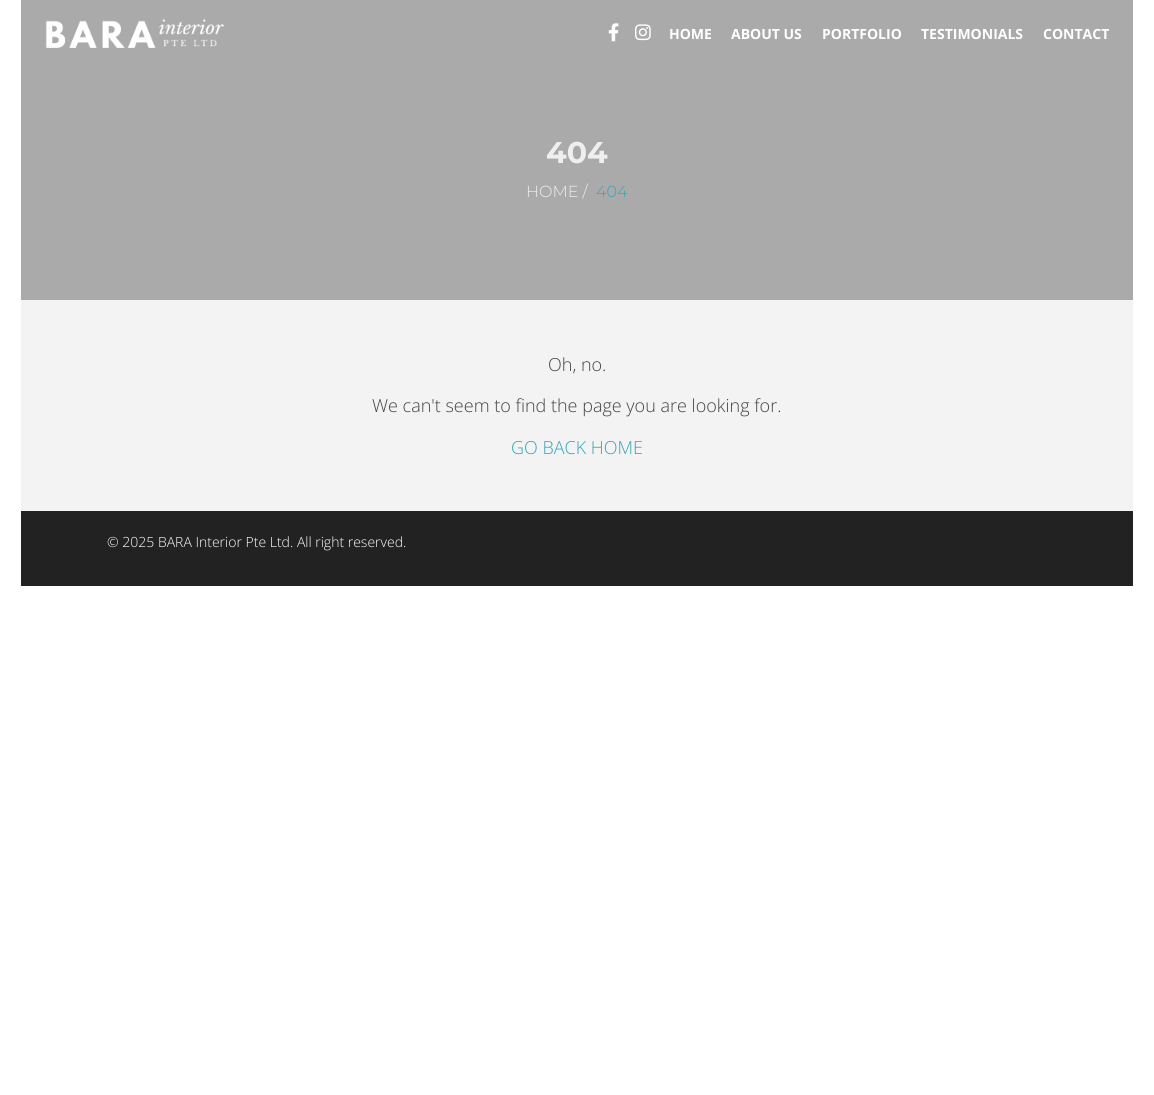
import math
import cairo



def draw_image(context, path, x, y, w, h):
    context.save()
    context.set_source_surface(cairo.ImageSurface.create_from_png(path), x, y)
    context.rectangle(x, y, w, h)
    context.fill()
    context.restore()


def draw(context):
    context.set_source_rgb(1, 1, 1)
    context.paint()
    context.set_source_rgb(243 / 255, 243 / 255, 243 / 255)
    context.rectangle(21, 300, 1112, 211)
    context.fill()
    context.set_source_rgb(170 / 255, 170 / 255, 170 / 255)
    context.rectangle(21, 0, 1112, 300)
    context.fill()
    draw_image(context, "images/1.png", 45, 19, 179, 29)
    draw_image(context, "images/2.png", 608, 23, 11, 19)
    draw_image(context, "images/3.png", 635, 24, 16, 17)
    context.set_source_rgb(34 / 255, 34 / 255, 34 / 255)
    context.rectangle(21, 511, 1112, 75)
    context.fill()
    context.select_font_face("Open Sans", cairo.FontSlant.NORMAL, cairo.FontWeight.BOLD)
    context.set_font_size(14)
    context.set_source_rgb(1, 1, 1)
    context.move_to(669, 39)
    context.show_text("HOME")
    context.move_to(731, 39)
    context.show_text("ABOUT US")
    context.move_to(822, 39)
    context.show_text("PORTFOLIO")
    context.move_to(921, 39)
    context.show_text("TESTIMONIALS")
    context.move_to(1043, 39)
    context.show_text("CONTACT")
    context.select_font_face("Montserrat", cairo.FontSlant.NORMAL, cairo.FontWeight.BOLD)
    context.set_font_size(30)
    context.set_source_rgb(239 / 255, 239 / 255, 239 / 255)
    context.move_to(546, 163)
    context.show_text("404")
    context.select_font_face("Montserrat Light")
    context.set_font_size(16)
    context.move_to(526, 197)
    context.show_text("HOME /")
    context.set_source_rgb(56 / 255, 164 / 255, 180 / 255)
    context.move_to(596, 197)
    context.show_text("404")
    context.select_font_face("Open Sans Light")
    context.set_font_size(18)
    context.set_source_rgb(68 / 255, 68 / 255, 68 / 255)
    context.move_to(548, 371)
    context.show_text("Oh, no.")
    context.move_to(372, 412)
    context.show_text("We can't seem to find the page you are looking for.")
    context.set_source_rgb(56 / 255, 164 / 255, 180 / 255)
    context.move_to(511, 454)
    context.show_text("GO BACK HOME")
    context.set_font_size(14)
    context.set_source_rgb(1, 1, 1)
    context.move_to(107, 547)
    context.show_text("© 2025 BARA Interior Pte Ltd. All right reserved.")


surface = cairo.ImageSurface(cairo.Format.RGB24, 1154, 1095)
context = cairo.Context(surface)
options = cairo.FontOptions()
options.set_hint_metrics(cairo.HintMetrics.OFF)
options.set_hint_style(cairo.HintStyle.NONE)
context.set_font_options(options)
context.set_miter_limit(4)
draw(context)
surface.write_to_png("out.png")
